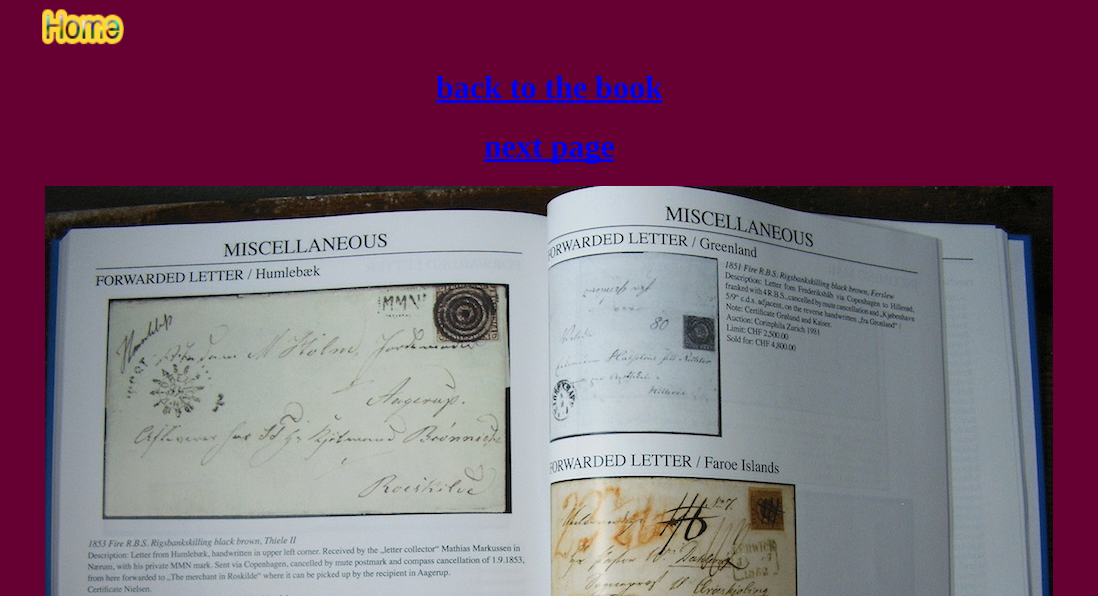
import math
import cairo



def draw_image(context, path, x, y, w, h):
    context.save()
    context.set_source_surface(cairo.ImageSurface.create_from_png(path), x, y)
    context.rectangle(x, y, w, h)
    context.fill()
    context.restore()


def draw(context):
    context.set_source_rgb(102 / 255, 0, 51 / 255)
    context.paint()
    draw_image(context, "images/1.png", 42, 9, 82, 36)
    context.set_source_rgb(0, 0, 238 / 255)
    context.rectangle(436, 100, 226, 3)
    context.fill()
    context.rectangle(484, 159, 130, 3)
    context.fill()
    draw_image(context, "images/2.png", 45, 186, 1008, 410)
    context.select_font_face("Liberation Serif", cairo.FontSlant.NORMAL, cairo.FontWeight.BOLD)
    context.set_font_size(32)
    context.move_to(436, 98)
    context.show_text("back to the book")
    context.move_to(484, 157)
    context.show_text("next page")


surface = cairo.ImageSurface(cairo.Format.RGB24, 1098, 596)
context = cairo.Context(surface)
options = cairo.FontOptions()
options.set_hint_metrics(cairo.HintMetrics.OFF)
options.set_hint_style(cairo.HintStyle.NONE)
context.set_font_options(options)
context.set_miter_limit(4)
draw(context)
surface.write_to_png("out.png")
